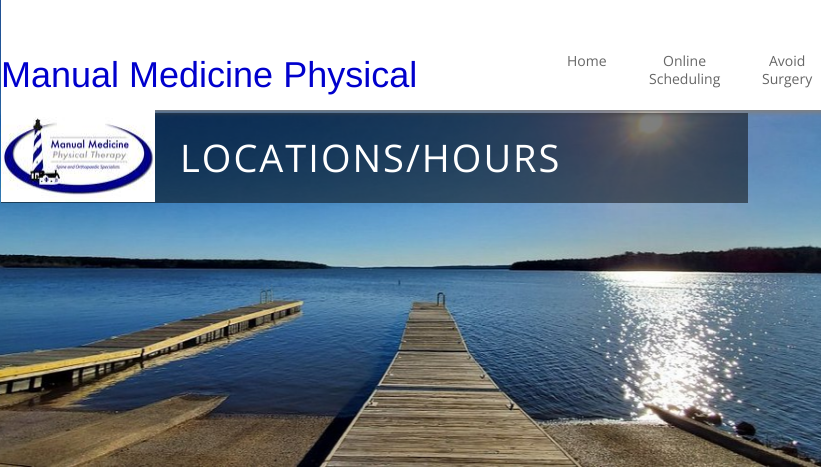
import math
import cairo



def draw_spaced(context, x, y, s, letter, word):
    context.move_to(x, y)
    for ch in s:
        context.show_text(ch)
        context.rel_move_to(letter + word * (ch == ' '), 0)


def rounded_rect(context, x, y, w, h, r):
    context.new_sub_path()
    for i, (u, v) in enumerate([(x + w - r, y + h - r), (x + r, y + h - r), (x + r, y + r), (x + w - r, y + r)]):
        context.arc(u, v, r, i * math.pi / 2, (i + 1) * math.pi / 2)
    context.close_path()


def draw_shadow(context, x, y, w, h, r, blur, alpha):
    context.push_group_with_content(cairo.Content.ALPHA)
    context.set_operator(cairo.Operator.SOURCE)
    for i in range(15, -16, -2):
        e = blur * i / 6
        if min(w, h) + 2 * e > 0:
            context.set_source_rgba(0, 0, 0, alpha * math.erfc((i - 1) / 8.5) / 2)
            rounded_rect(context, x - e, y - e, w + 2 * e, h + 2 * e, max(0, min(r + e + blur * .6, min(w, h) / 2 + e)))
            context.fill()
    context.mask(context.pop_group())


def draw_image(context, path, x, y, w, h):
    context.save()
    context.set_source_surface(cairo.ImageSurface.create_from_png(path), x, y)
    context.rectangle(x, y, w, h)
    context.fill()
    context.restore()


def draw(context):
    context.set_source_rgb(1, 1, 1)
    context.paint()
    draw_image(context, "images/1.png", 0, 0, 821, 467)
    context.set_source_rgb(128 / 255, 128 / 255, 128 / 255)
    draw_shadow(context, 3, -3, 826, 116, 0, 2.5, 1)
    context.set_source_rgb(1, 1, 1)
    context.rectangle(1, 0, 820, 110)
    context.fill()
    context.set_source_rgba(0, 0, 0, 0.5)
    context.rectangle(1, 113, 747, 90)
    context.fill()
    draw_image(context, "images/2.png", 1, 110, 154, 92)
    context.select_font_face("Liberation Sans")
    context.set_font_size(36)
    context.set_source_rgb(0, 0, 205 / 255)
    context.move_to(1, 87)
    context.show_text("Manual Medicine Physical")
    context.select_font_face("Open Sans")
    context.set_font_size(14)
    context.set_source_rgb(102 / 255, 102 / 255, 102 / 255)
    context.move_to(567, 66)
    context.show_text("Home")
    context.move_to(663, 66)
    context.show_text("Online")
    context.move_to(649, 84)
    context.show_text("Scheduling")
    context.move_to(769, 66)
    context.show_text("Avoid")
    context.move_to(762, 84)
    context.show_text("Surgery")
    context.set_font_size(38)
    context.set_source_rgb(1, 1, 1)
    draw_spaced(context, 180, 172, "LOCATIONS/HOURS", 2, 0)


surface = cairo.ImageSurface(cairo.Format.RGB24, 821, 467)
context = cairo.Context(surface)
options = cairo.FontOptions()
options.set_hint_metrics(cairo.HintMetrics.OFF)
options.set_hint_style(cairo.HintStyle.NONE)
context.set_font_options(options)
context.set_miter_limit(4)
draw(context)
surface.write_to_png("out.png")
